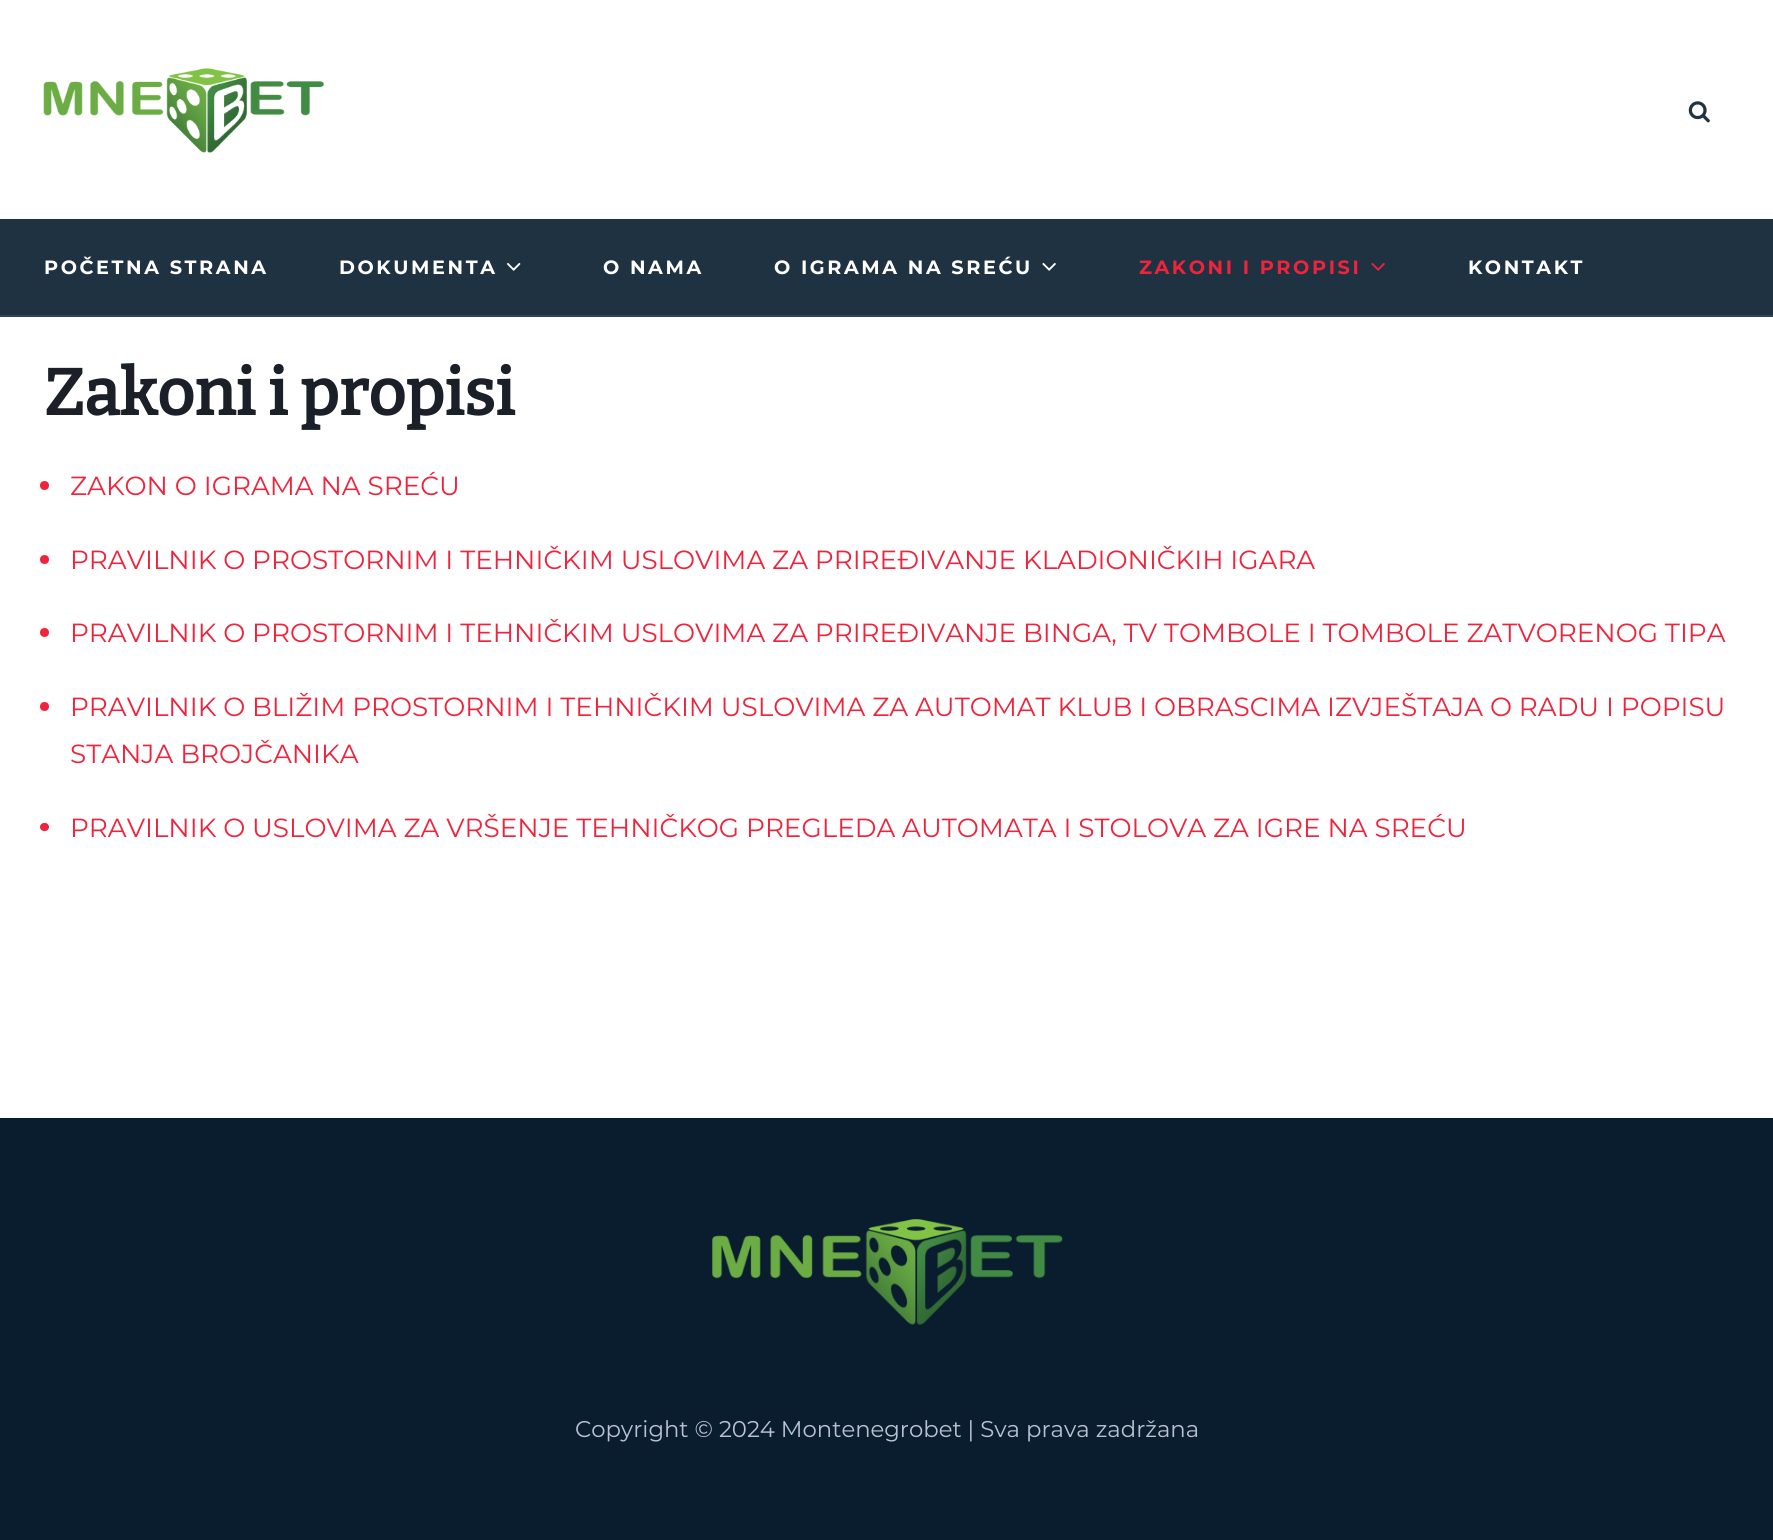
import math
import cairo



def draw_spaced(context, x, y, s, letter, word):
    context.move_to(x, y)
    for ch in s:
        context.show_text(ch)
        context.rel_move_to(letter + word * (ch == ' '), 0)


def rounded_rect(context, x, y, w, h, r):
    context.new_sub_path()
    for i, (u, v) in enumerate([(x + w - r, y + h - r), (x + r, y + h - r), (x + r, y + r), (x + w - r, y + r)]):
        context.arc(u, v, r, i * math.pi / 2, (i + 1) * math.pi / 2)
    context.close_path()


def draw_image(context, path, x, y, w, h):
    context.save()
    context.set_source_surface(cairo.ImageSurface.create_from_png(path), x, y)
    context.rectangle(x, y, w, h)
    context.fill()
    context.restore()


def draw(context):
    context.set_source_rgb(1, 1, 1)
    context.paint()
    draw_image(context, "images/1.png", 43, 68, 281, 85)
    draw_image(context, "images/2.png", 1688, 101, 22, 22)
    context.set_source_rgb(31 / 255, 50 / 255, 65 / 255)
    context.rectangle(0, 219, 1773, 96)
    context.fill()
    context.set_source_rgb(45 / 255, 66 / 255, 83 / 255)
    context.rectangle(0, 315, 1773, 2)
    context.fill()
    draw_image(context, "images/3.png", 506, 262, 15, 9)
    draw_image(context, "images/4.png", 1042, 262, 14, 9)
    draw_image(context, "images/5.png", 1371, 262, 14, 9)
    context.set_source_rgb(239 / 255, 35 / 255, 60 / 255)
    context.arc(44.5, 485.5, 4.5, 0, 2 * math.pi)
    context.fill()
    context.arc(44.5, 559.5, 4.5, 0, 2 * math.pi)
    context.fill()
    context.arc(44.5, 632.5, 4.5, 0, 2 * math.pi)
    context.fill()
    context.arc(44.5, 706.5, 4.5, 0, 2 * math.pi)
    context.fill()
    rounded_rect(context, 40, 823, 9, 8, 4)
    context.fill()
    context.set_source_rgb(10 / 255, 29 / 255, 46 / 255)
    context.rectangle(0, 1118, 1773, 422)
    context.fill()
    draw_image(context, "images/6.png", 712, 1219, 351, 106)
    context.select_font_face("Montserrat", cairo.FontSlant.NORMAL, cairo.FontWeight.BOLD)
    context.set_font_size(19.25)
    context.set_source_rgb(1, 1, 1)
    draw_spaced(context, 44, 274, "POČETNA STRANA", 2.6, 0)
    draw_spaced(context, 339, 274, "DOKUMENTA", 2.6, 0)
    draw_spaced(context, 603, 274, "O NAMA", 2.6, 0)
    draw_spaced(context, 774, 274, "O IGRAMA NA SREĆU", 2.6, 0)
    context.set_source_rgb(239 / 255, 35 / 255, 60 / 255)
    draw_spaced(context, 1139, 274, "ZAKONI I PROPISI", 2.6, 0)
    context.set_source_rgb(1, 1, 1)
    draw_spaced(context, 1468, 274, "KONTAKT", 2.6, 0)
    context.select_font_face("Bitter", cairo.FontSlant.NORMAL, cairo.FontWeight.BOLD)
    context.set_font_size(64.75)
    context.set_source_rgb(26 / 255, 31 / 255, 40 / 255)
    context.move_to(44, 415)
    context.show_text("Zakoni i propisi")
    context.select_font_face("Montserrat")
    context.set_font_size(26.25)
    context.set_source_rgb(239 / 255, 35 / 255, 60 / 255)
    context.move_to(70, 495)
    context.show_text("ZAKON O IGRAMA NA SREĆU")
    context.move_to(70, 569)
    context.show_text("PRAVILNIK O PROSTORNIM I TEHNIČKIM USLOVIMA ZA PRIREĐIVANJE KLADIONIČKIH IGARA")
    context.move_to(70, 642)
    context.show_text("PRAVILNIK O PROSTORNIM I TEHNIČKIM USLOVIMA ZA PRIREĐIVANJE BINGA, TV TOMBOLE I TOMBOLE ZATVORENOG TIPA")
    context.move_to(70, 716)
    context.show_text("PRAVILNIK O BLIŽIM PROSTORNIM I TEHNIČKIM USLOVIMA ZA AUTOMAT KLUB I OBRASCIMA IZVJEŠTAJA O RADU I POPISU")
    context.move_to(70, 763)
    context.show_text("STANJA BROJČANIKA")
    context.move_to(70, 837)
    context.show_text("PRAVILNIK O USLOVIMA ZA VRŠENJE TEHNIČKOG PREGLEDA AUTOMATA I STOLOVA ZA IGRE NA SREĆU")
    context.set_font_size(22.75)
    context.set_source_rgb(187 / 255, 193 / 255, 212 / 255)
    context.move_to(575, 1437)
    context.show_text("Copyright © 2024 Montenegrobet | Sva prava zadržana")


surface = cairo.ImageSurface(cairo.Format.RGB24, 1773, 1540)
context = cairo.Context(surface)
options = cairo.FontOptions()
options.set_hint_metrics(cairo.HintMetrics.OFF)
options.set_hint_style(cairo.HintStyle.NONE)
context.set_font_options(options)
context.set_miter_limit(4)
draw(context)
surface.write_to_png("out.png")
